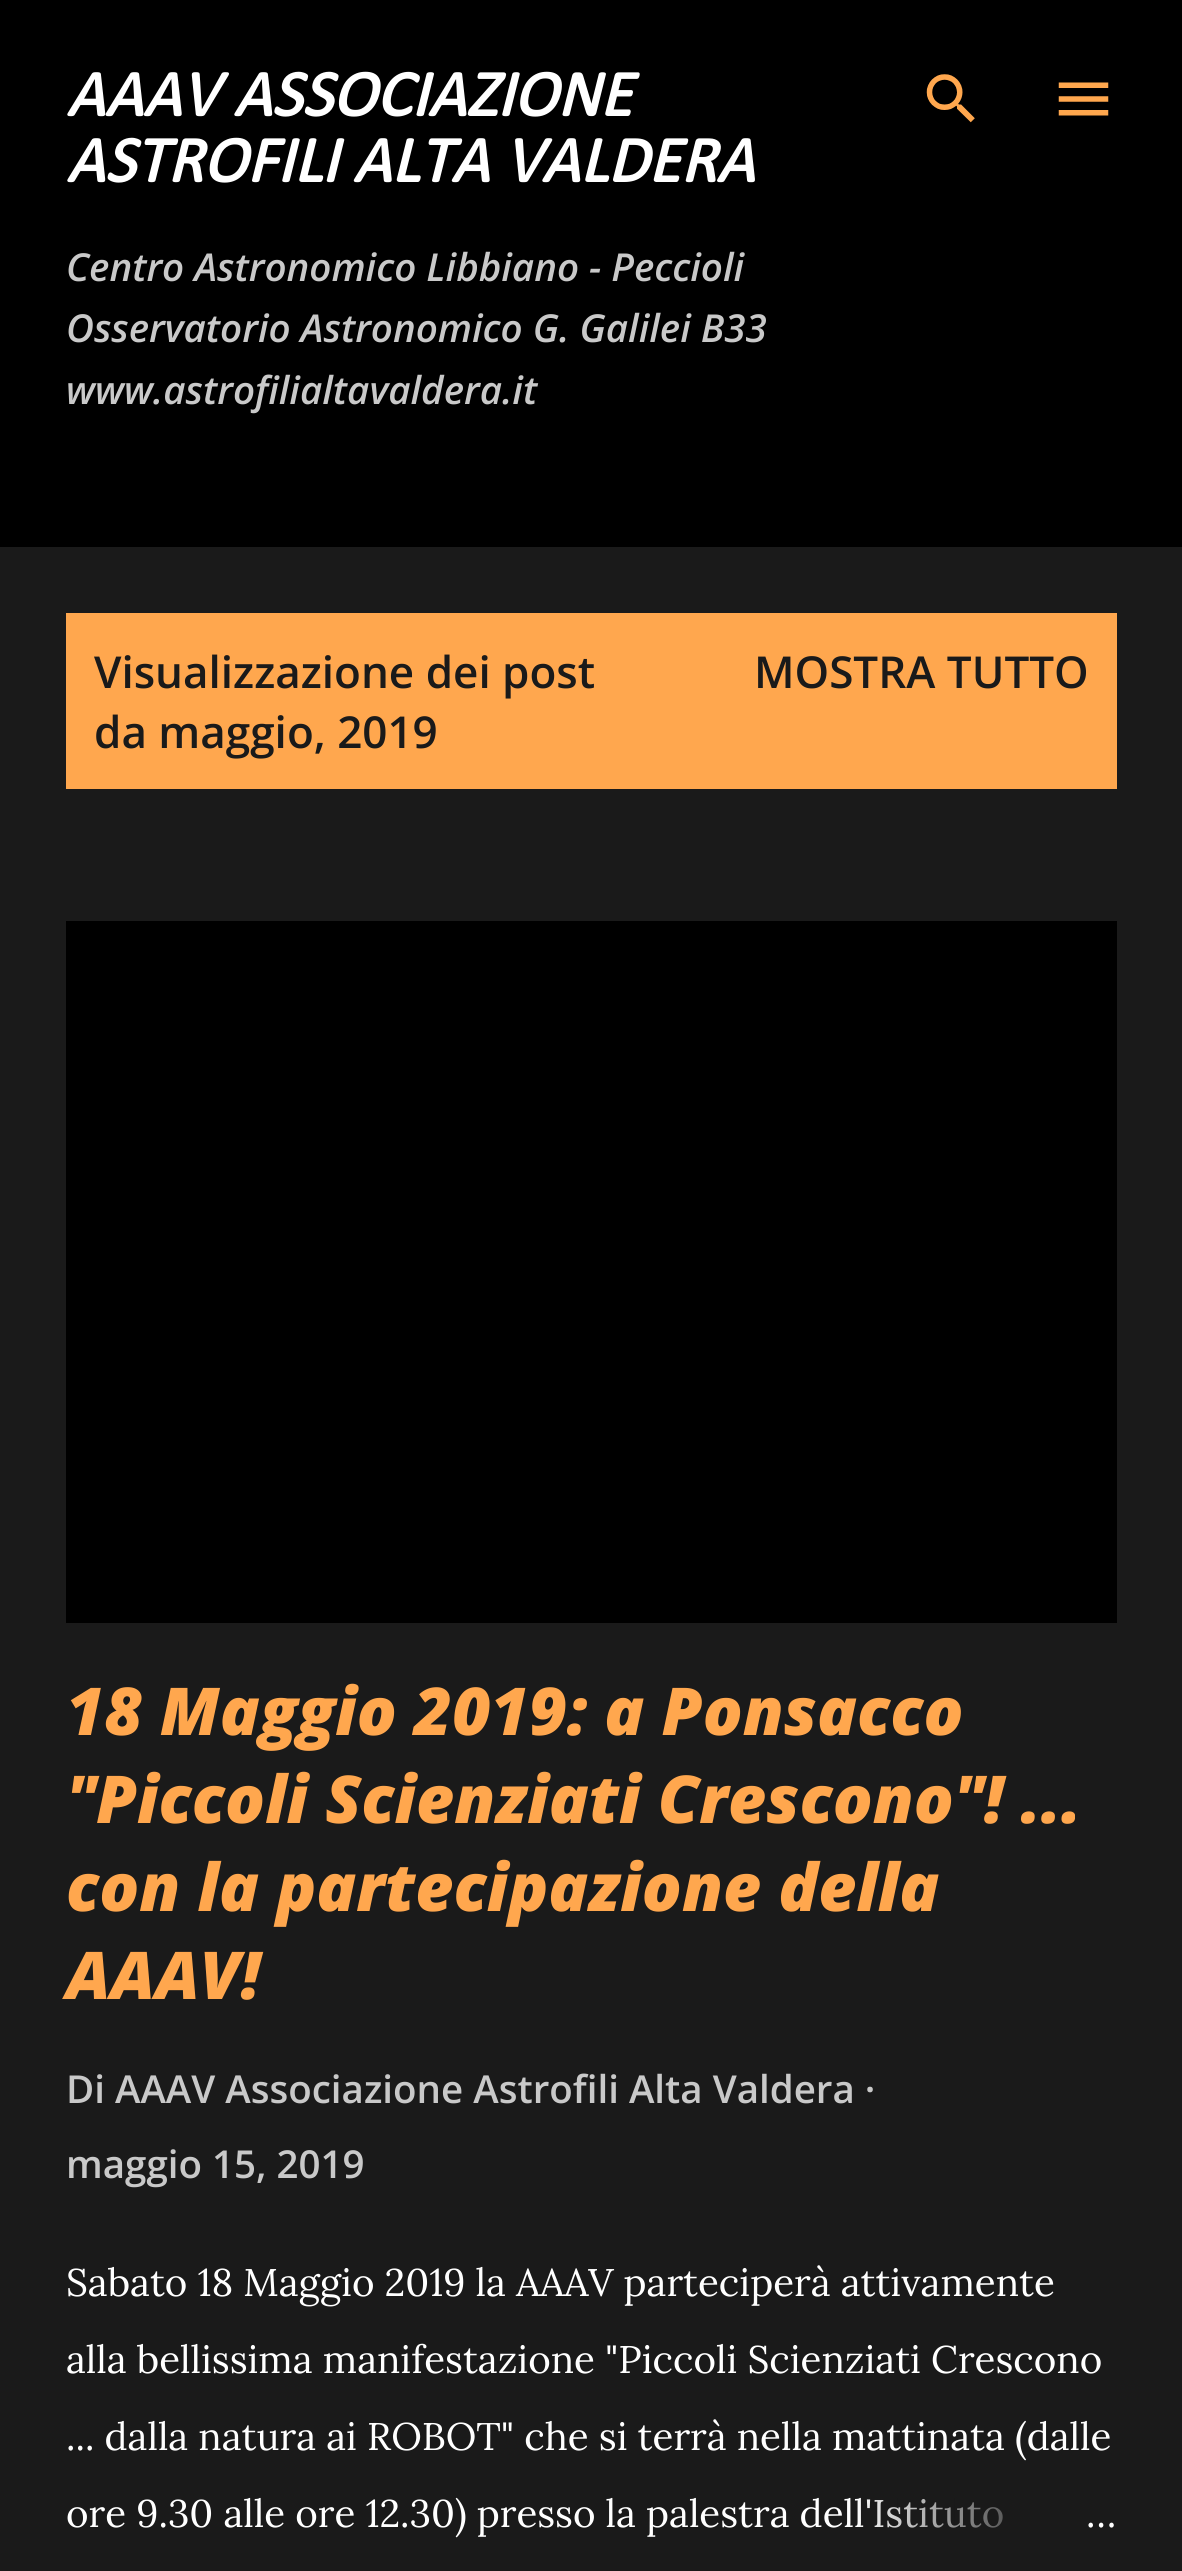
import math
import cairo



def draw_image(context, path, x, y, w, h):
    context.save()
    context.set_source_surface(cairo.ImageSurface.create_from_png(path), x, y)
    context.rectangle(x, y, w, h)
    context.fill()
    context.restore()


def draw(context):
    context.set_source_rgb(26 / 255, 26 / 255, 26 / 255)
    context.paint()
    context.set_source_rgb(0, 0, 0)
    context.rectangle(0, 0, 1182, 547)
    context.fill()
    draw_image(context, "images/1.png", 926, 74, 49, 49)
    draw_image(context, "images/2.png", 1058, 82, 51, 34)
    context.set_source_rgb(1, 167 / 255, 78 / 255)
    context.rectangle(66, 613, 1051, 176)
    context.fill()
    context.set_source_rgb(0, 0, 0)
    context.rectangle(66, 921, 1051, 702)
    context.fill()
    context.select_font_face("Calibri", cairo.FontSlant.ITALIC, cairo.FontWeight.BOLD)
    context.set_font_size(66)
    context.set_source_rgb(1, 1, 1)
    context.move_to(66, 116)
    context.show_text("AAAV ASSOCIAZIONE")
    context.move_to(66, 182)
    context.show_text("ASTROFILI ALTA VALDERA")
    context.select_font_face("Open Sans SemiBold", cairo.FontSlant.ITALIC)
    context.set_font_size(38.5)
    context.set_source_rgb(201 / 255, 201 / 255, 201 / 255)
    context.move_to(66, 281)
    context.show_text("Centro Astronomico Libbiano - Peccioli")
    context.move_to(66, 342)
    context.show_text("Osservatorio Astronomico G. Galilei B33")
    context.move_to(66, 404)
    context.show_text("www.astrofilialtavaldera.it")
    context.select_font_face("Open Sans SemiBold")
    context.set_font_size(44)
    context.set_source_rgb(26 / 255, 26 / 255, 26 / 255)
    context.move_to(94, 688)
    context.show_text("Visualizzazione dei post")
    context.move_to(94, 748)
    context.show_text("da maggio, 2019")
    context.move_to(754, 688)
    context.show_text("MOSTRA TUTTO")
    context.select_font_face("Open Sans ExtraBold", cairo.FontSlant.ITALIC)
    context.set_font_size(66)
    context.set_source_rgb(1, 167 / 255, 78 / 255)
    context.move_to(66, 1735)
    context.show_text("18 Maggio 2019: a Ponsacco")
    context.move_to(66, 1823)
    context.show_text("\"Piccoli Scienziati Crescono\"! ...")
    context.move_to(66, 1911)
    context.show_text("con la partecipazione della")
    context.move_to(66, 1999)
    context.show_text("AAAV!")
    context.select_font_face("Open Sans SemiBold")
    context.set_font_size(38.5)
    context.set_source_rgb(201 / 255, 201 / 255, 201 / 255)
    context.move_to(66, 2103)
    context.show_text("Di AAAV Associazione Astrofili Alta Valdera ·")
    context.move_to(66, 2178)
    context.show_text("maggio 15, 2019")
    context.select_font_face("Lora")
    context.set_source_rgb(1, 1, 1)
    context.move_to(66, 2296)
    context.show_text("Sabato 18 Maggio 2019 la AAAV parteciperà attivamente")
    context.move_to(66, 2373)
    context.show_text("alla bellissima manifestazione \"Piccoli Scienziati Crescono")
    context.move_to(66, 2450)
    context.show_text("... dalla natura ai ROBOT\" che si terrà nella mattinata (dalle")
    context.move_to(66, 2527)
    context.show_text("ore 9.30 alle ore 12.30) presso la palestra dell'Istituto")
    gradient = cairo.LinearGradient(1117, 2514, 853, 2514)
    gradient.add_color_stop_rgba(0, 26 / 255, 26 / 255, 26 / 255, 1)
    gradient.add_color_stop_rgba(0.2, 26 / 255, 26 / 255, 26 / 255, 1)
    gradient.add_color_stop_rgba(1, 26 / 255, 26 / 255, 26 / 255, 0)
    context.set_source(gradient)
    context.rectangle(858, 2498, 145, 30)
    context.fill()
    context.set_source_rgb(1, 1, 1)
    context.move_to(1086, 2527)
    context.show_text("…")


surface = cairo.ImageSurface(cairo.Format.RGB24, 1182, 2571)
context = cairo.Context(surface)
options = cairo.FontOptions()
options.set_hint_metrics(cairo.HintMetrics.OFF)
options.set_hint_style(cairo.HintStyle.NONE)
context.set_font_options(options)
context.set_miter_limit(4)
draw(context)
surface.write_to_png("out.png")
